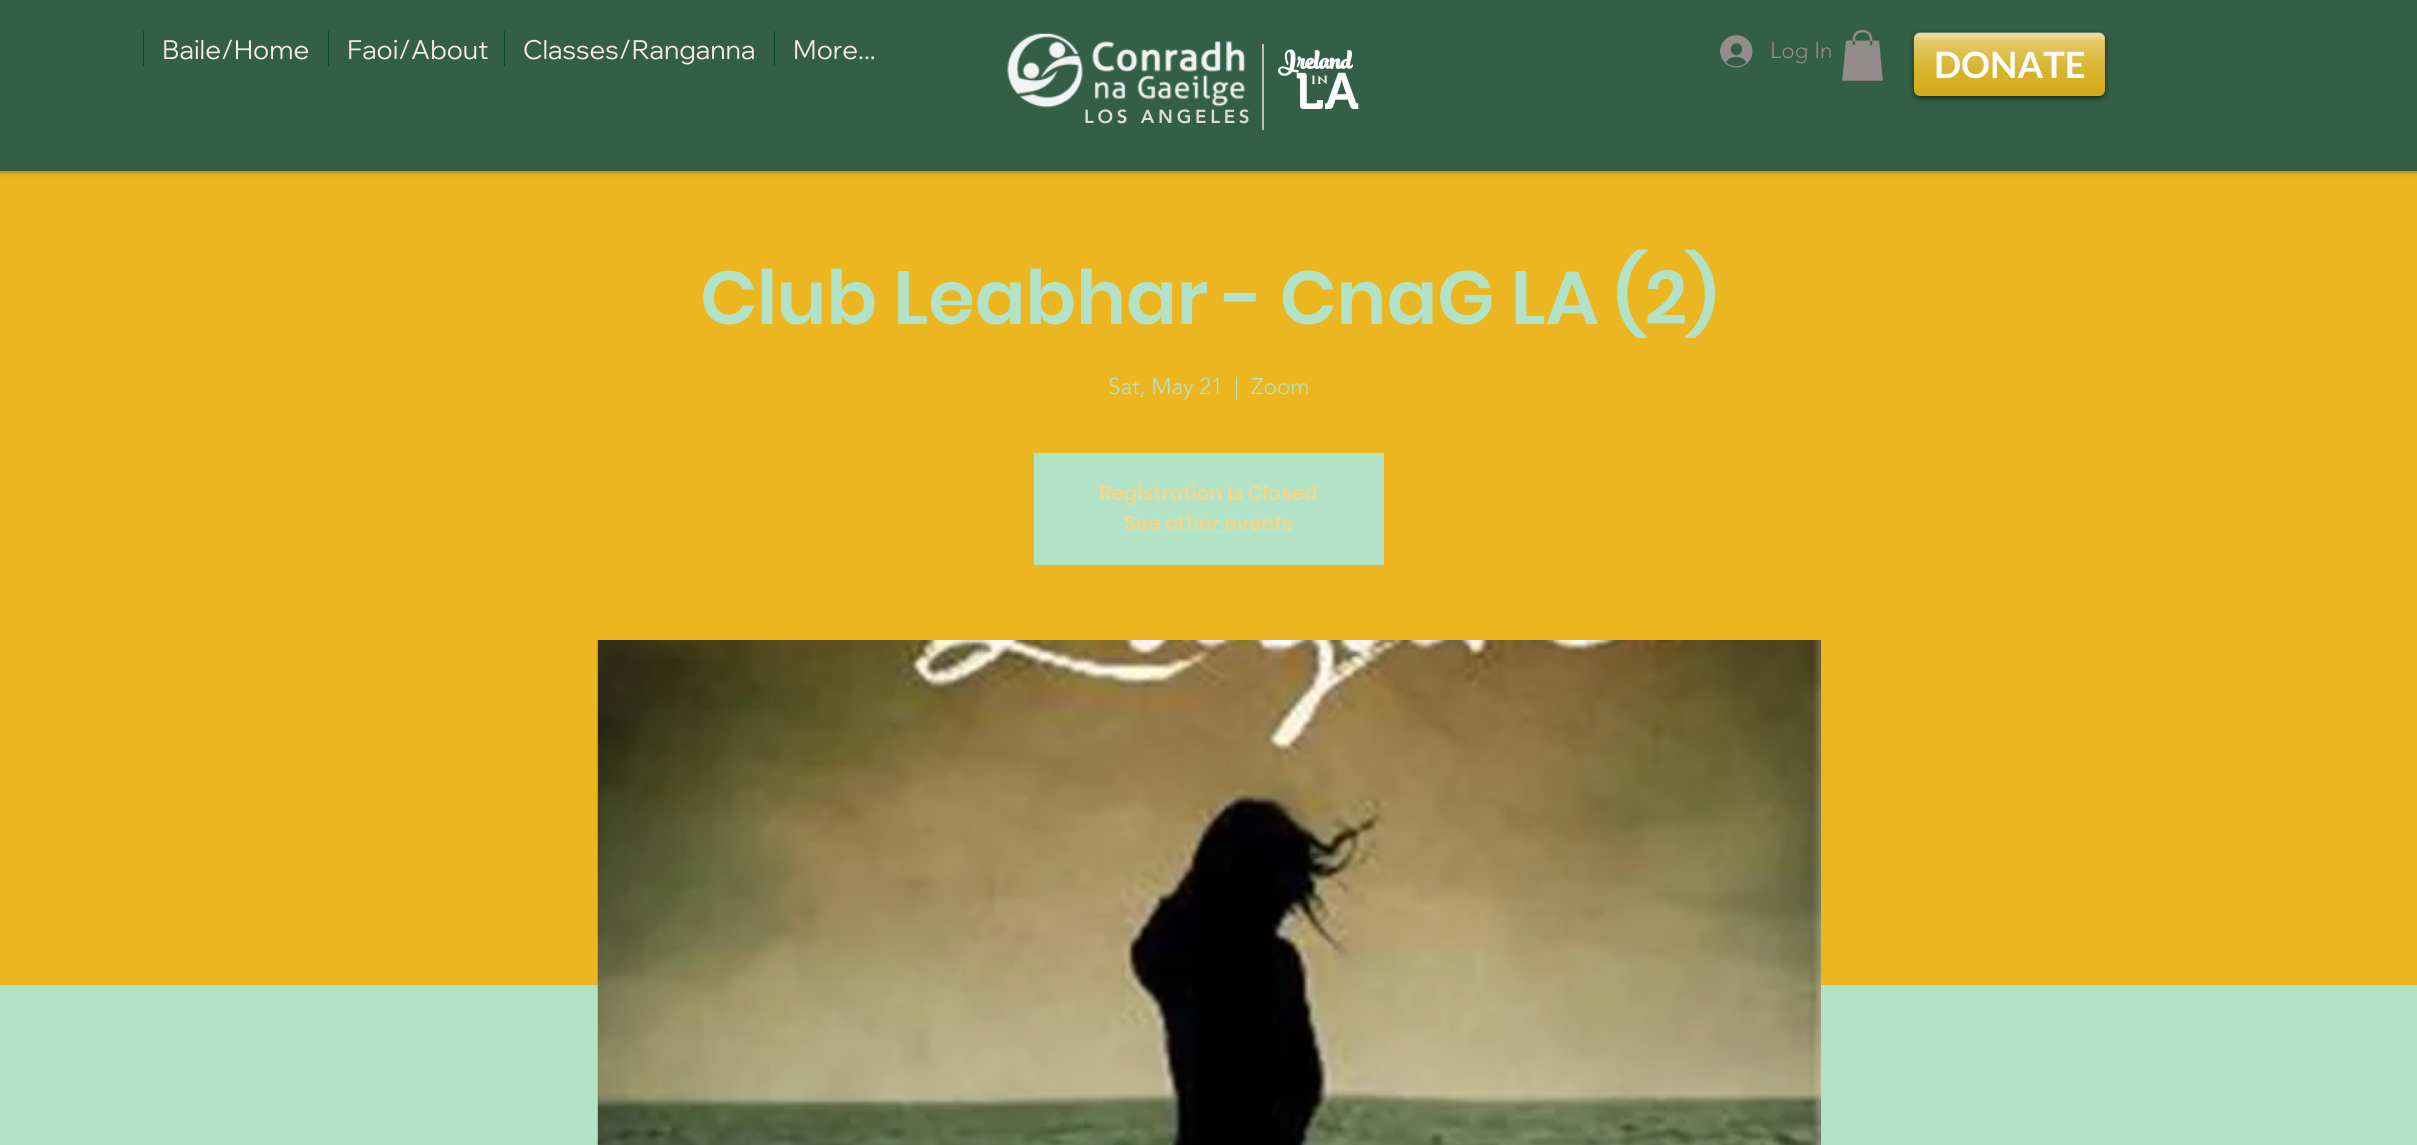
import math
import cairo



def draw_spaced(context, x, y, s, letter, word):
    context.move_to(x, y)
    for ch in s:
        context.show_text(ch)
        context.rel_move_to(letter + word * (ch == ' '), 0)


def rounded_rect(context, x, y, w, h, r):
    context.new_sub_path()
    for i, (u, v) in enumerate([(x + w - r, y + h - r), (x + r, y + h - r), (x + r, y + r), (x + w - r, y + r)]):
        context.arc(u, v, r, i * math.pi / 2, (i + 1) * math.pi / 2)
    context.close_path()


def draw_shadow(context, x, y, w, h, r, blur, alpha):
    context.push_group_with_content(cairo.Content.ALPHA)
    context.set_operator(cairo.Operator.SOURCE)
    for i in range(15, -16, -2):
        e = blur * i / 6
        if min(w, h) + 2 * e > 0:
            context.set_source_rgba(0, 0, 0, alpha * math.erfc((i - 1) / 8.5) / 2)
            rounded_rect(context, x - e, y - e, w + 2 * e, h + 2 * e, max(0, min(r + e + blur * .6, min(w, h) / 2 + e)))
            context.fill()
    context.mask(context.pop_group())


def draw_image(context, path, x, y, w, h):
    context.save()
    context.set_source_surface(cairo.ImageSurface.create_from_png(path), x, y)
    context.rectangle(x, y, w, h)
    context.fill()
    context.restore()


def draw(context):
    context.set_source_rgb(178 / 255, 227 / 255, 199 / 255)
    context.paint()
    context.set_source_rgb(236 / 255, 182 / 255, 33 / 255)
    context.rectangle(0, 171, 2417, 814)
    context.fill()
    context.set_source_rgb(0, 0, 0)
    draw_shadow(context, 0, 0, 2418, 171, 0, 3, 0.5)
    context.set_source_rgb(50 / 255, 95 / 255, 70 / 255)
    context.rectangle(0, 0, 2417, 171)
    context.fill()
    context.set_source_rgb(10 / 255, 71 / 255, 36 / 255)
    context.rectangle(143, 31, 1, 35)
    context.fill()
    context.rectangle(328, 31, 1, 35)
    context.fill()
    context.rectangle(504, 31, 1, 35)
    context.fill()
    context.rectangle(774, 31, 1, 35)
    context.fill()
    context.set_source_rgb(197 / 255, 186 / 255, 186 / 255)
    context.rectangle(1262, 44, 2, 86)
    context.fill()
    draw_image(context, "images/1.png", 1720, 35, 33, 33)
    draw_image(context, "images/2.png", 1842, 30, 41, 51)
    context.set_source_rgb(0, 0, 0)
    draw_shadow(context, 1914, 34, 191, 64, 6, 2.5, 0.6)
    context.set_source_rgb(211 / 255, 172 / 255, 23 / 255)
    rounded_rect(context, 1914, 33, 191, 63, 6)
    context.fill()
    draw_image(context, "images/3.png", 1913, 32, 192, 57)
    draw_image(context, "images/4.png", 1007, 33, 239, 75)
    context.set_source_rgb(178 / 255, 227 / 255, 199 / 255)
    context.rectangle(1034, 453, 350, 112)
    context.fill()
    context.set_source_rgb(242 / 255, 215 / 255, 138 / 255)
    context.rectangle(1124, 531, 170, 1)
    context.fill()
    draw_image(context, "images/5.png", 597, 640, 1225, 505)
    context.select_font_face("Wix Madefor Display")
    context.set_font_size(26.25)
    context.set_source_rgb(246 / 255, 232 / 255, 232 / 255)
    context.move_to(162, 59)
    context.show_text("Baile/Home")
    context.move_to(347, 59)
    context.show_text("Faoi/About")
    context.move_to(523, 59)
    context.show_text("Classes/Ranganna")
    context.move_to(793, 59)
    context.show_text("More...")
    context.select_font_face("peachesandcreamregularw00", cairo.FontSlant.NORMAL, cairo.FontWeight.BOLD)
    context.set_font_size(38)
    context.set_source_rgb(254 / 255, 253 / 255, 253 / 255)
    context.move_to(1278, 69)
    context.show_text("Ireland")
    context.select_font_face("Cinzel", cairo.FontSlant.NORMAL, cairo.FontWeight.BOLD)
    context.set_font_size(14)
    context.set_source_rgb(246 / 255, 232 / 255, 232 / 255)
    draw_spaced(context, 1311, 84, "in", 1, 0)
    context.select_font_face("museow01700 SemiBold")
    context.set_font_size(51)
    context.set_source_rgb(254 / 255, 253 / 255, 253 / 255)
    draw_spaced(context, 1295, 109, "LA", 1, 0)
    context.select_font_face("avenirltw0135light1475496 Light")
    context.set_font_size(22.5)
    context.set_source_rgb(148 / 255, 139 / 255, 139 / 255)
    context.move_to(1770, 58)
    context.show_text("Log In")
    context.select_font_face("Lato", cairo.FontSlant.NORMAL, cairo.FontWeight.BOLD)
    context.set_font_size(36.25)
    context.set_source_rgb(254 / 255, 253 / 255, 253 / 255)
    context.move_to(1934, 78)
    context.show_text("DONATE")
    context.select_font_face("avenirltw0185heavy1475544 Black")
    context.set_font_size(18.75)
    context.set_source_rgb(219 / 255, 219 / 255, 219 / 255)
    draw_spaced(context, 1084, 123, "LOS ANGELES", 3.75, 0)
    context.select_font_face("Poppins SemiBold")
    context.set_font_size(75)
    context.set_source_rgb(178 / 255, 227 / 255, 199 / 255)
    context.move_to(700, 324)
    context.show_text("Club Leabhar - CnaG LA (2)")
    context.select_font_face("avenirltw0135light1475496 Light")
    context.set_font_size(22.5)
    context.move_to(1108, 394)
    context.show_text("Sat, May 21")
    context.move_to(1234, 394)
    context.show_text("|")
    context.move_to(1251, 394)
    context.show_text("Zoom")
    context.select_font_face("Poppins SemiBold")
    context.set_font_size(20)
    context.set_source_rgb(242 / 255, 215 / 255, 138 / 255)
    context.move_to(1099, 500)
    context.show_text("Registration is Closed")
    context.move_to(1124, 530)
    context.show_text("See other events")


surface = cairo.ImageSurface(cairo.Format.RGB24, 2417, 1145)
context = cairo.Context(surface)
options = cairo.FontOptions()
options.set_hint_metrics(cairo.HintMetrics.OFF)
options.set_hint_style(cairo.HintStyle.NONE)
context.set_font_options(options)
context.set_miter_limit(4)
draw(context)
surface.write_to_png("out.png")
